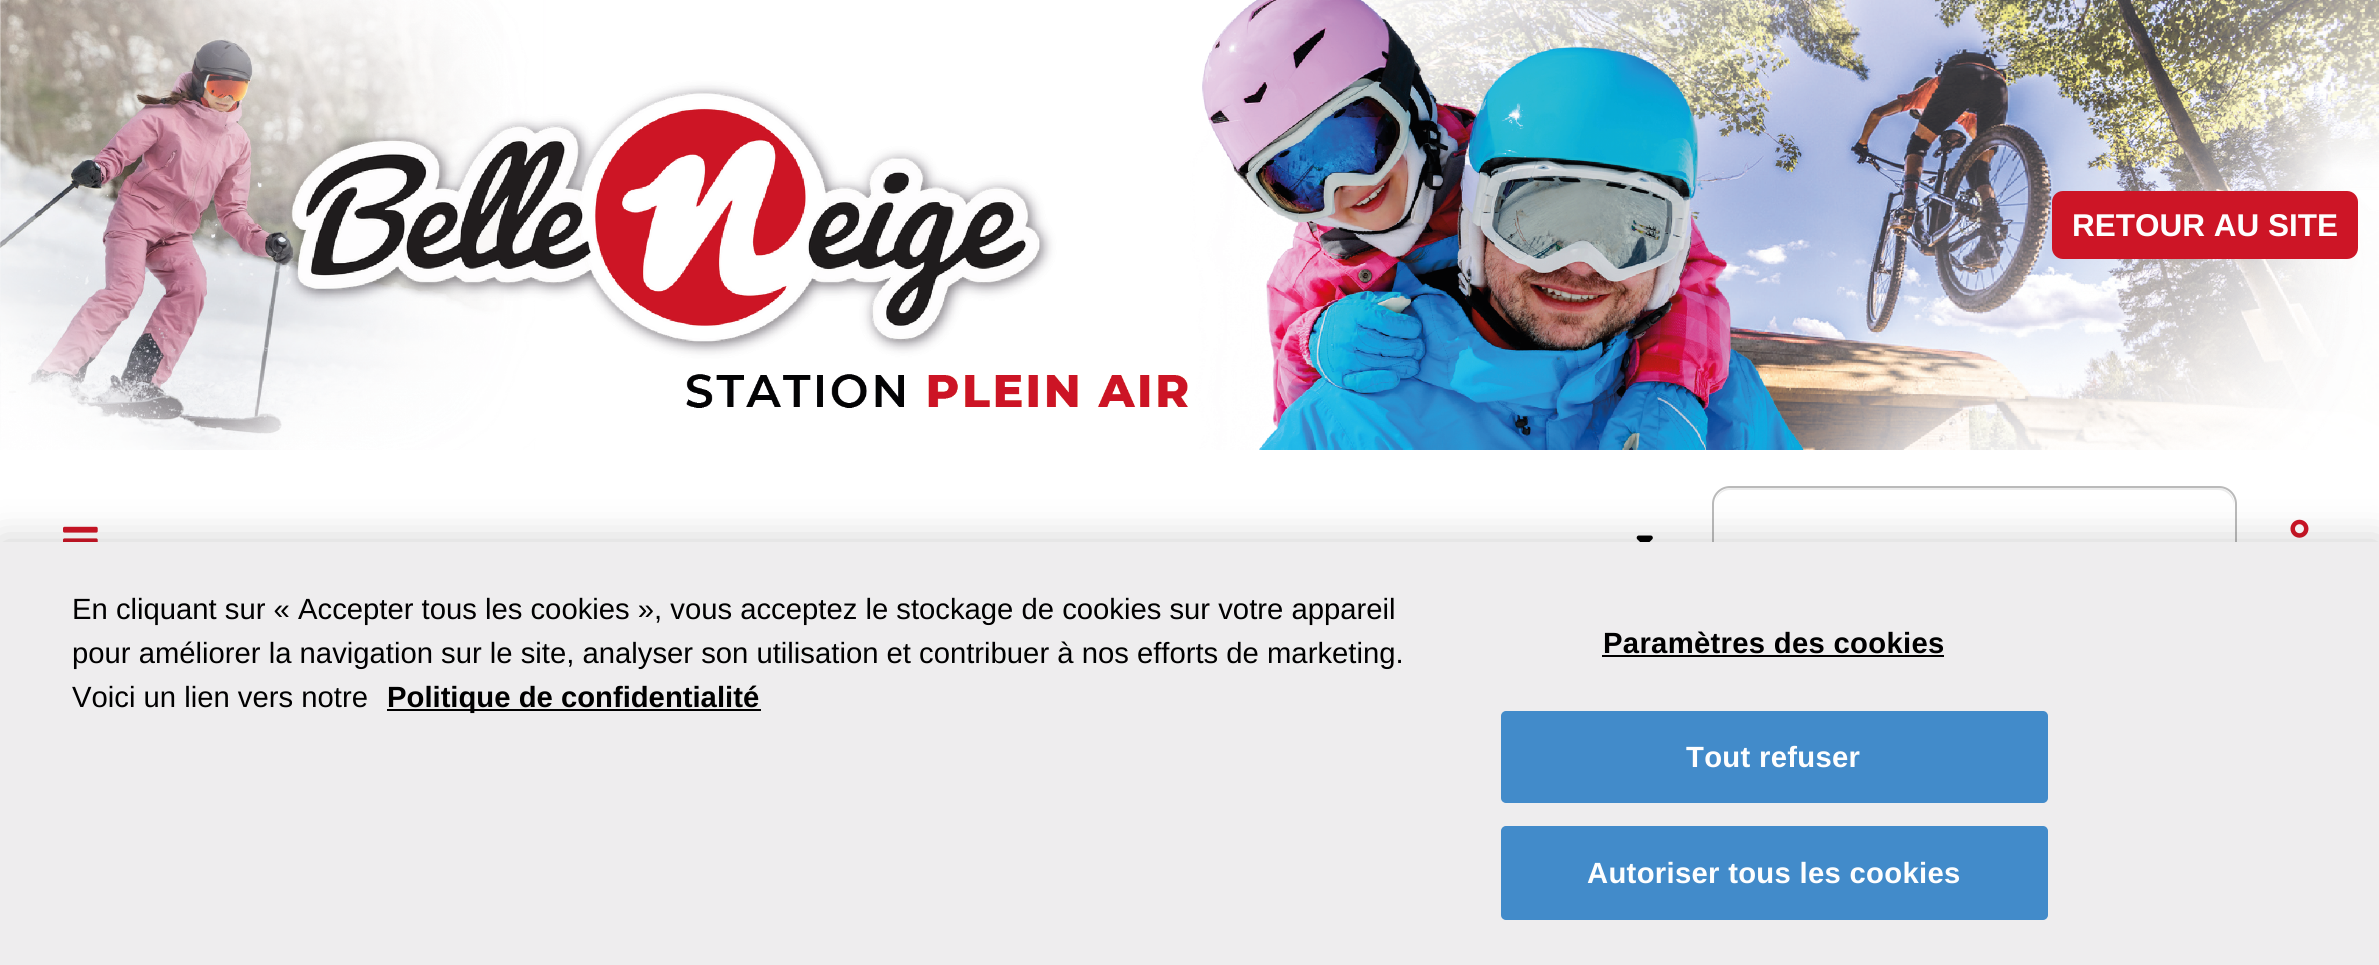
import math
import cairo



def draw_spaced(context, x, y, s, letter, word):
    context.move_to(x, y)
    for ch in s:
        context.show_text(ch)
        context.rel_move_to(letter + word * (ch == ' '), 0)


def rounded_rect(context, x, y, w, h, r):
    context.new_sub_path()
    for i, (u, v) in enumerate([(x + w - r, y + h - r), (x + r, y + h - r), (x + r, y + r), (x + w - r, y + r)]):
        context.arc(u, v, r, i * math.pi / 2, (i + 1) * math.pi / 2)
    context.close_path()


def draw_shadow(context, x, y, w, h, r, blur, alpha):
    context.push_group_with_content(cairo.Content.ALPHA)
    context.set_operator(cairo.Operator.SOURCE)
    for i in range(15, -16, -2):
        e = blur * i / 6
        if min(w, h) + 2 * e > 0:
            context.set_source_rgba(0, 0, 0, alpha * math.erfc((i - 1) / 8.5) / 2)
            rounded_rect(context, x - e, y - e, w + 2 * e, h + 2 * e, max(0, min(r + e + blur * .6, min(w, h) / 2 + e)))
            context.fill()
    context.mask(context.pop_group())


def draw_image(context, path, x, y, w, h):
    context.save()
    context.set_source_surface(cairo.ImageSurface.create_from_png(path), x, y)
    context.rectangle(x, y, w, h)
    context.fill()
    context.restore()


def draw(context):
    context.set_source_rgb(1, 1, 1)
    context.paint()
    draw_image(context, "images/1.png", 0, 0, 2379, 450)
    context.set_source_rgb(205 / 255, 21 / 255, 38 / 255)
    rounded_rect(context, 2052, 191, 306, 68, 11)
    context.fill()
    draw_image(context, "images/2.png", 63, 526, 35, 16)
    draw_image(context, "images/3.png", 1636, 535, 17, 7)
    context.set_source_rgb(236 / 255, 236 / 255, 236 / 255)
    context.new_path()
    context.move_to(1730, 490)
    context.line_to(2218, 490)
    context.curve_to(2227, 490, 2234, 498, 2234, 506)
    context.line_to(2234, 504)
    context.curve_to(2234, 495, 2227, 488, 2218, 488)
    context.line_to(1731, 488)
    context.curve_to(1724, 488, 1717, 493, 1716, 500)
    context.curve_to(1718, 494, 1724, 490, 1730, 490)
    context.close_path()
    context.fill()
    rounded_rect(context, 1713, 487, 523, 106, 17)
    context.set_source_rgb(186 / 255, 186 / 255, 186 / 255)
    context.stroke()
    draw_image(context, "images/4.png", 2290, 519, 19, 19)
    context.set_source_rgb(0, 0, 0)
    draw_shadow(context, 0, 542, 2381, 423, 0, 20, 0.2)
    context.set_source_rgb(238 / 255, 237 / 255, 238 / 255)
    context.rectangle(0, 542, 2379, 423)
    context.fill()
    context.set_source_rgb(0, 0, 0)
    context.rectangle(387, 709, 374, 2)
    context.fill()
    context.rectangle(1602, 655, 342, 2)
    context.fill()
    context.set_source_rgb(66 / 255, 139 / 255, 202 / 255)
    rounded_rect(context, 1502, 712, 545, 90, 4)
    context.fill_preserve()
    context.stroke()
    rounded_rect(context, 1502, 827, 545, 92, 4)
    context.fill_preserve()
    context.stroke()
    context.select_font_face("Liberation Sans", cairo.FontSlant.NORMAL, cairo.FontWeight.BOLD)
    context.set_font_size(31.5)
    context.set_source_rgb(254 / 255, 254 / 255, 254 / 255)
    context.move_to(2072, 236)
    context.show_text("RETOUR AU SITE")
    context.select_font_face("Liberation Sans")
    context.set_font_size(29.25)
    context.set_source_rgb(0, 0, 0)
    context.move_to(72, 619)
    context.show_text("En cliquant sur « Accepter tous les cookies », vous acceptez le stockage de cookies sur votre appareil")
    context.move_to(72, 663)
    context.show_text("pour améliorer la navigation sur le site, analyser son utilisation et contribuer à nos efforts de marketing.")
    context.move_to(72, 707)
    context.show_text("Voici un lien vers notre")
    context.select_font_face("Liberation Sans", cairo.FontSlant.NORMAL, cairo.FontWeight.BOLD)
    context.move_to(387, 707)
    context.show_text("Politique de confidentialité")
    draw_spaced(context, 1603, 653, "Paramètres des cookies", 0.3, 0)
    context.set_source_rgb(254 / 255, 254 / 255, 254 / 255)
    draw_spaced(context, 1686, 767, "Tout refuser", 0.3, 0)
    draw_spaced(context, 1587, 883, "Autoriser tous les cookies", 0.3, 0)


surface = cairo.ImageSurface(cairo.Format.RGB24, 2379, 965)
context = cairo.Context(surface)
options = cairo.FontOptions()
options.set_hint_metrics(cairo.HintMetrics.OFF)
options.set_hint_style(cairo.HintStyle.NONE)
context.set_font_options(options)
context.set_miter_limit(4)
draw(context)
surface.write_to_png("out.png")
